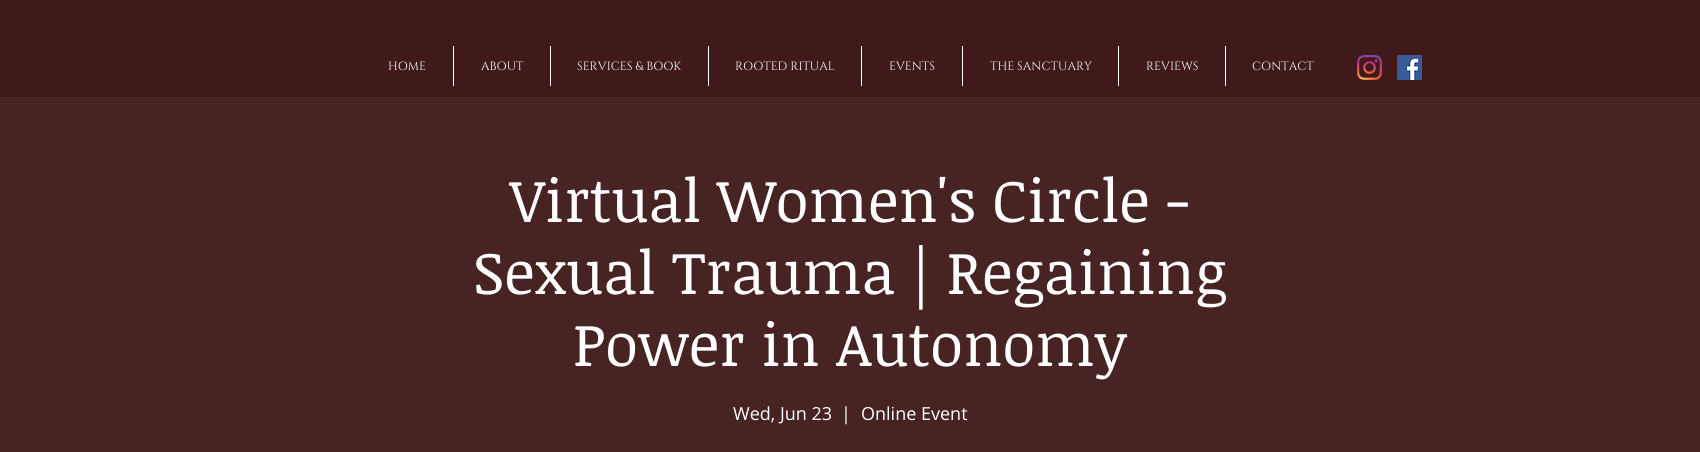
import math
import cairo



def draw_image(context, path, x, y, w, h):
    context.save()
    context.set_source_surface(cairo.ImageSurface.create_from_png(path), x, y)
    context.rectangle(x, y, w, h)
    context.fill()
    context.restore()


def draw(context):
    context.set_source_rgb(64 / 255, 26 / 255, 26 / 255)
    context.paint()
    context.set_source_rgb(1, 1, 1)
    context.rectangle(453, 46, 1, 40)
    context.fill()
    context.rectangle(550, 46, 1, 40)
    context.fill()
    context.rectangle(708, 46, 1, 40)
    context.fill()
    context.rectangle(861, 46, 1, 40)
    context.fill()
    context.rectangle(962, 46, 1, 40)
    context.fill()
    context.rectangle(1118, 46, 1, 40)
    context.fill()
    context.rectangle(1225, 46, 1, 40)
    context.fill()
    draw_image(context, "images/1.png", 1357, 55, 25, 25)
    draw_image(context, "images/2.png", 1397, 55, 25, 25)
    context.set_source_rgb(71 / 255, 35 / 255, 35 / 255)
    context.rectangle(0, 97, 1700, 355)
    context.fill()
    context.select_font_face("Cinzel")
    context.set_font_size(12)
    context.set_source_rgb(1, 1, 1)
    context.move_to(388, 70)
    context.show_text("HOME")
    context.move_to(481, 70)
    context.show_text("ABOUT")
    context.move_to(577, 70)
    context.show_text("SERVICES & BOOK")
    context.move_to(735, 70)
    context.show_text("ROOTED RITUAL")
    context.move_to(889, 70)
    context.show_text("EVENTS")
    context.move_to(990, 70)
    context.show_text("THE SANCTUARY")
    context.move_to(1146, 70)
    context.show_text("REVIEWS")
    context.move_to(1252, 70)
    context.show_text("CONTACT")
    context.select_font_face("Noticia Text")
    context.set_font_size(60)
    context.move_to(510, 222)
    context.show_text("Virtual Women's Circle -")
    context.move_to(473, 294)
    context.show_text("Sexual Trauma | Regaining")
    context.move_to(573, 366)
    context.show_text("Power in Autonomy")
    context.select_font_face("Open Sans")
    context.set_font_size(18)
    context.move_to(733, 420)
    context.show_text("Wed, Jun 23")
    context.move_to(841, 420)
    context.show_text("|")
    context.move_to(861, 420)
    context.show_text("Online Event")


surface = cairo.ImageSurface(cairo.Format.RGB24, 1700, 452)
context = cairo.Context(surface)
options = cairo.FontOptions()
options.set_hint_metrics(cairo.HintMetrics.OFF)
options.set_hint_style(cairo.HintStyle.NONE)
context.set_font_options(options)
context.set_miter_limit(4)
draw(context)
surface.write_to_png("out.png")
